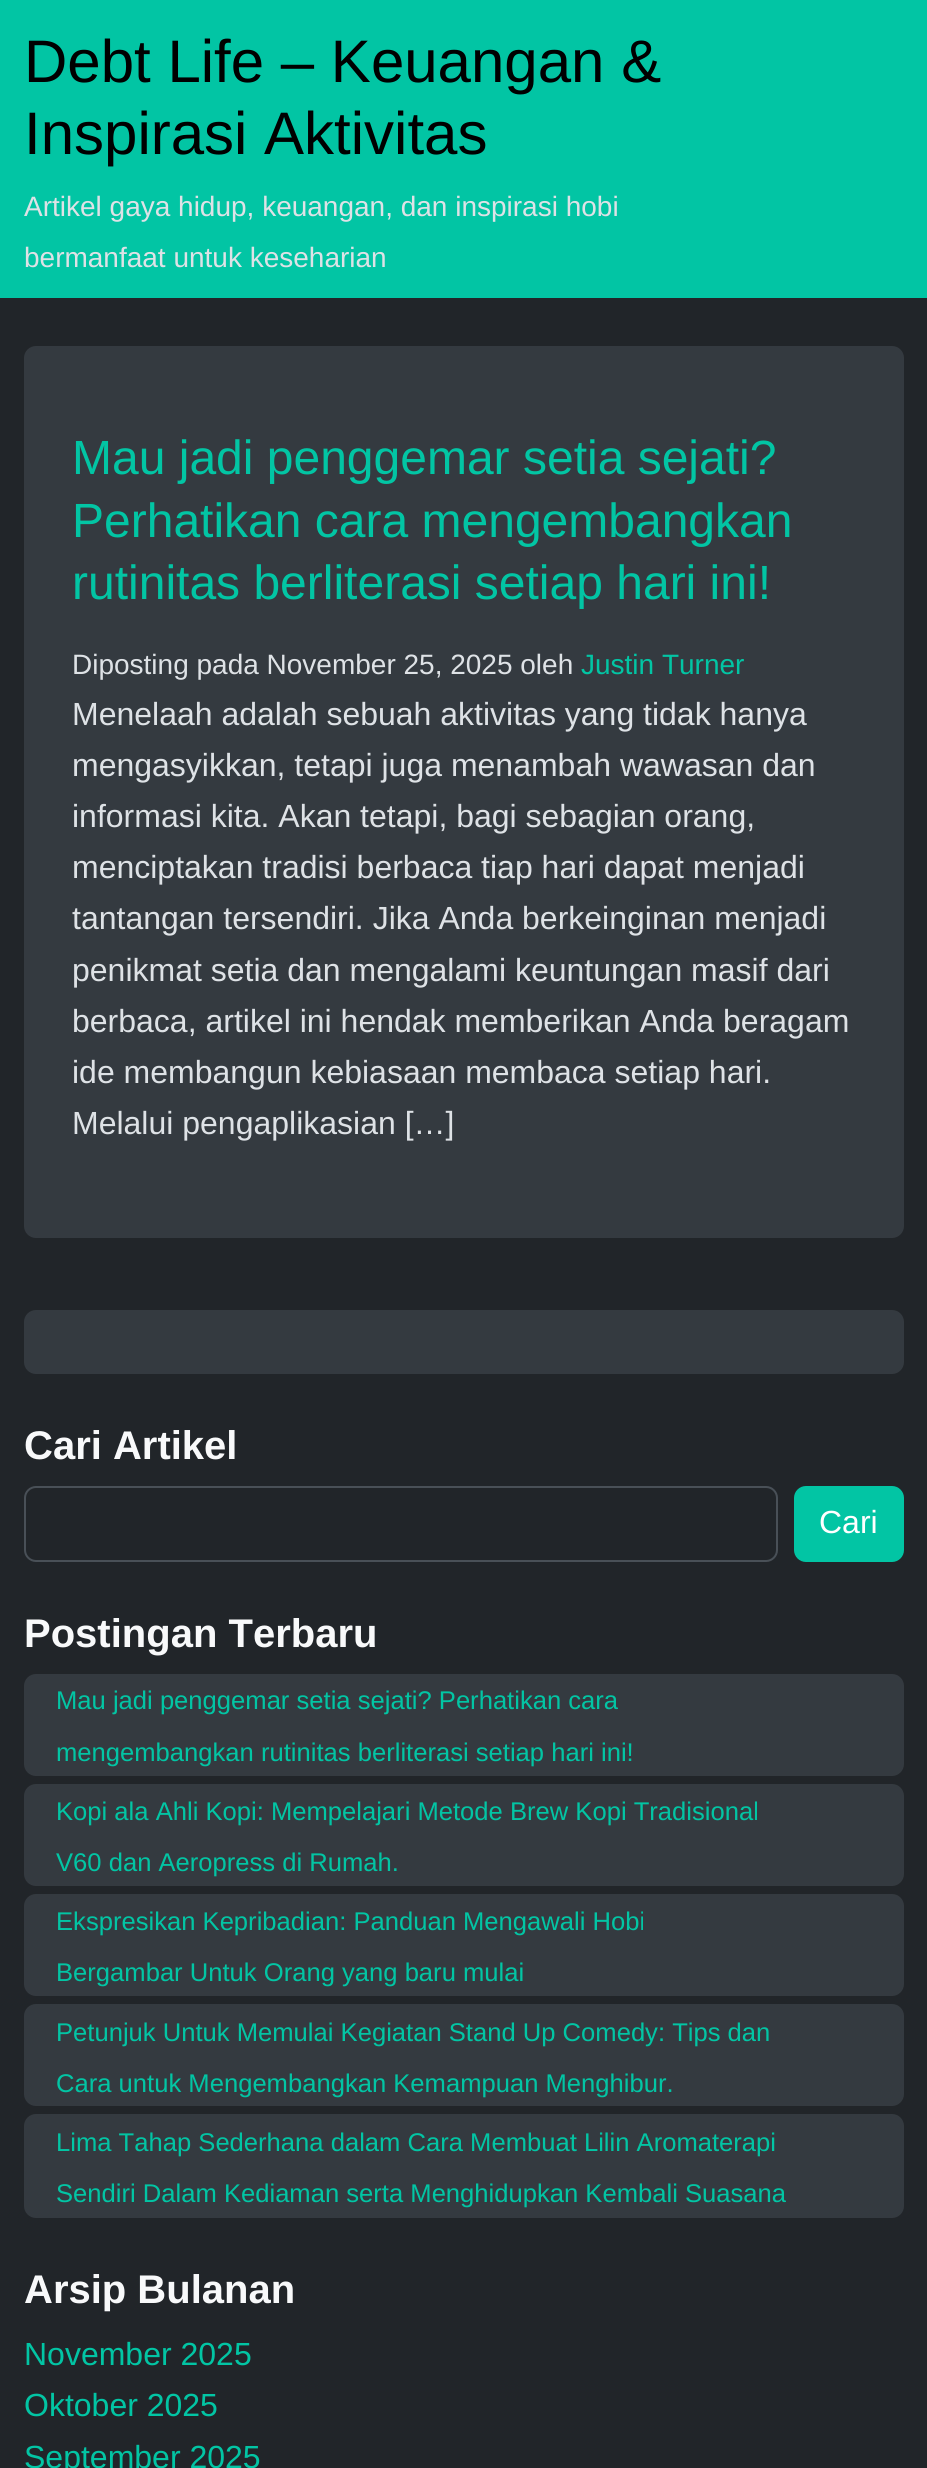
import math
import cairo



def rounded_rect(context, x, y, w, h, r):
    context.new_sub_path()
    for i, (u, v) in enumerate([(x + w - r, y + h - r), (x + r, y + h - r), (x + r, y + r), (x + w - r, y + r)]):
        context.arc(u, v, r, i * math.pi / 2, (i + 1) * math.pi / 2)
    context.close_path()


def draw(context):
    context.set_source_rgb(33 / 255, 37 / 255, 41 / 255)
    context.paint()
    context.set_source_rgb(2 / 255, 197 / 255, 164 / 255)
    context.rectangle(0, 0, 927, 298)
    context.fill()
    context.set_source_rgb(52 / 255, 58 / 255, 64 / 255)
    rounded_rect(context, 24, 346, 880, 892, 12)
    context.fill()
    rounded_rect(context, 24, 1310, 880, 64, 12)
    context.fill()
    rounded_rect(context, 25, 1487, 752, 74, 11)
    context.set_source_rgb(73 / 255, 80 / 255, 87 / 255)
    context.stroke()
    context.set_source_rgb(2 / 255, 197 / 255, 164 / 255)
    rounded_rect(context, 794, 1486, 110, 76, 12)
    context.fill()
    context.set_source_rgb(52 / 255, 58 / 255, 64 / 255)
    rounded_rect(context, 24, 1674, 880, 102, 12)
    context.fill()
    rounded_rect(context, 24, 1784, 880, 102, 12)
    context.fill()
    rounded_rect(context, 24, 1894, 880, 102, 12)
    context.fill()
    rounded_rect(context, 24, 2004, 880, 102, 12)
    context.fill()
    rounded_rect(context, 24, 2114, 880, 104, 12)
    context.fill()
    context.select_font_face("Liberation Sans")
    context.set_font_size(60)
    context.set_source_rgb(0, 0, 0)
    context.move_to(24, 82)
    context.show_text("Debt Life – Keuangan &")
    context.move_to(24, 154)
    context.show_text("Inspirasi Aktivitas")
    context.set_font_size(28)
    context.set_source_rgb(222 / 255, 226 / 255, 230 / 255)
    context.move_to(24, 216)
    context.show_text("Artikel gaya hidup, keuangan, dan inspirasi hobi")
    context.move_to(24, 267)
    context.show_text("bermanfaat untuk keseharian")
    context.set_font_size(48)
    context.set_source_rgb(2 / 255, 197 / 255, 164 / 255)
    context.move_to(72, 474)
    context.show_text("Mau jadi penggemar setia sejati?")
    context.move_to(72, 537)
    context.show_text("Perhatikan cara mengembangkan")
    context.move_to(72, 599)
    context.show_text("rutinitas berliterasi setiap hari ini!")
    context.set_font_size(28)
    context.set_source_rgb(222 / 255, 226 / 255, 230 / 255)
    context.move_to(72, 674)
    context.show_text("Diposting pada November 25, 2025 oleh")
    context.set_source_rgb(2 / 255, 197 / 255, 164 / 255)
    context.move_to(581, 674)
    context.show_text("Justin Turner")
    context.set_font_size(32)
    context.set_source_rgb(222 / 255, 226 / 255, 230 / 255)
    context.move_to(72, 725)
    context.show_text("Menelaah adalah sebuah aktivitas yang tidak hanya")
    context.move_to(72, 776)
    context.show_text("mengasyikkan, tetapi juga menambah wawasan dan")
    context.move_to(72, 827)
    context.show_text("informasi kita. Akan tetapi, bagi sebagian orang,")
    context.move_to(72, 878)
    context.show_text("menciptakan tradisi berbaca tiap hari dapat menjadi")
    context.move_to(72, 929)
    context.show_text("tantangan tersendiri. Jika Anda berkeinginan menjadi")
    context.move_to(72, 981)
    context.show_text("penikmat setia dan mengalami keuntungan masif dari")
    context.move_to(72, 1032)
    context.show_text("berbaca, artikel ini hendak memberikan Anda beragam")
    context.move_to(72, 1083)
    context.show_text("ide membangun kebiasaan membaca setiap hari.")
    context.move_to(72, 1134)
    context.show_text("Melalui pengaplikasian […]")
    context.select_font_face("Liberation Sans", cairo.FontSlant.NORMAL, cairo.FontWeight.BOLD)
    context.set_font_size(40)
    context.set_source_rgb(248 / 255, 249 / 255, 250 / 255)
    context.move_to(24, 1459)
    context.show_text("Cari Artikel")
    context.select_font_face("Liberation Sans")
    context.set_font_size(32)
    context.set_source_rgb(1, 1, 1)
    context.move_to(819, 1533)
    context.show_text("Cari")
    context.select_font_face("Liberation Sans", cairo.FontSlant.NORMAL, cairo.FontWeight.BOLD)
    context.set_font_size(40)
    context.set_source_rgb(248 / 255, 249 / 255, 250 / 255)
    context.move_to(24, 1647)
    context.show_text("Postingan Terbaru")
    context.select_font_face("Liberation Sans")
    context.set_font_size(25.6)
    context.set_source_rgb(2 / 255, 197 / 255, 164 / 255)
    context.move_to(56, 1709)
    context.show_text("Mau jadi penggemar setia sejati? Perhatikan cara")
    context.move_to(56, 1761)
    context.show_text("mengembangkan rutinitas berliterasi setiap hari ini!")
    context.move_to(56, 1820)
    context.show_text("Kopi ala Ahli Kopi: Mempelajari Metode Brew Kopi Tradisional")
    context.move_to(56, 1871)
    context.show_text("V60 dan Aeropress di Rumah.")
    context.move_to(56, 1930)
    context.show_text("Ekspresikan Kepribadian: Panduan Mengawali Hobi")
    context.move_to(56, 1981)
    context.show_text("Bergambar Untuk Orang yang baru mulai")
    context.move_to(56, 2041)
    context.show_text("Petunjuk Untuk Memulai Kegiatan Stand Up Comedy: Tips dan")
    context.move_to(56, 2092)
    context.show_text("Cara untuk Mengembangkan Kemampuan Menghibur.")
    context.move_to(56, 2151)
    context.show_text("Lima Tahap Sederhana dalam Cara Membuat Lilin Aromaterapi")
    context.move_to(56, 2202)
    context.show_text("Sendiri Dalam Kediaman serta Menghidupkan Kembali Suasana")
    context.select_font_face("Liberation Sans", cairo.FontSlant.NORMAL, cairo.FontWeight.BOLD)
    context.set_font_size(40)
    context.set_source_rgb(248 / 255, 249 / 255, 250 / 255)
    context.move_to(24, 2303)
    context.show_text("Arsip Bulanan")
    context.select_font_face("Liberation Sans")
    context.set_font_size(32)
    context.set_source_rgb(2 / 255, 197 / 255, 164 / 255)
    context.move_to(24, 2365)
    context.show_text("November 2025")
    context.move_to(24, 2416)
    context.show_text("Oktober 2025")
    context.move_to(24, 2468)
    context.show_text("September 2025")


surface = cairo.ImageSurface(cairo.Format.RGB24, 927, 2468)
context = cairo.Context(surface)
options = cairo.FontOptions()
options.set_hint_metrics(cairo.HintMetrics.OFF)
options.set_hint_style(cairo.HintStyle.NONE)
context.set_font_options(options)
context.set_miter_limit(4)
draw(context)
surface.write_to_png("out.png")
